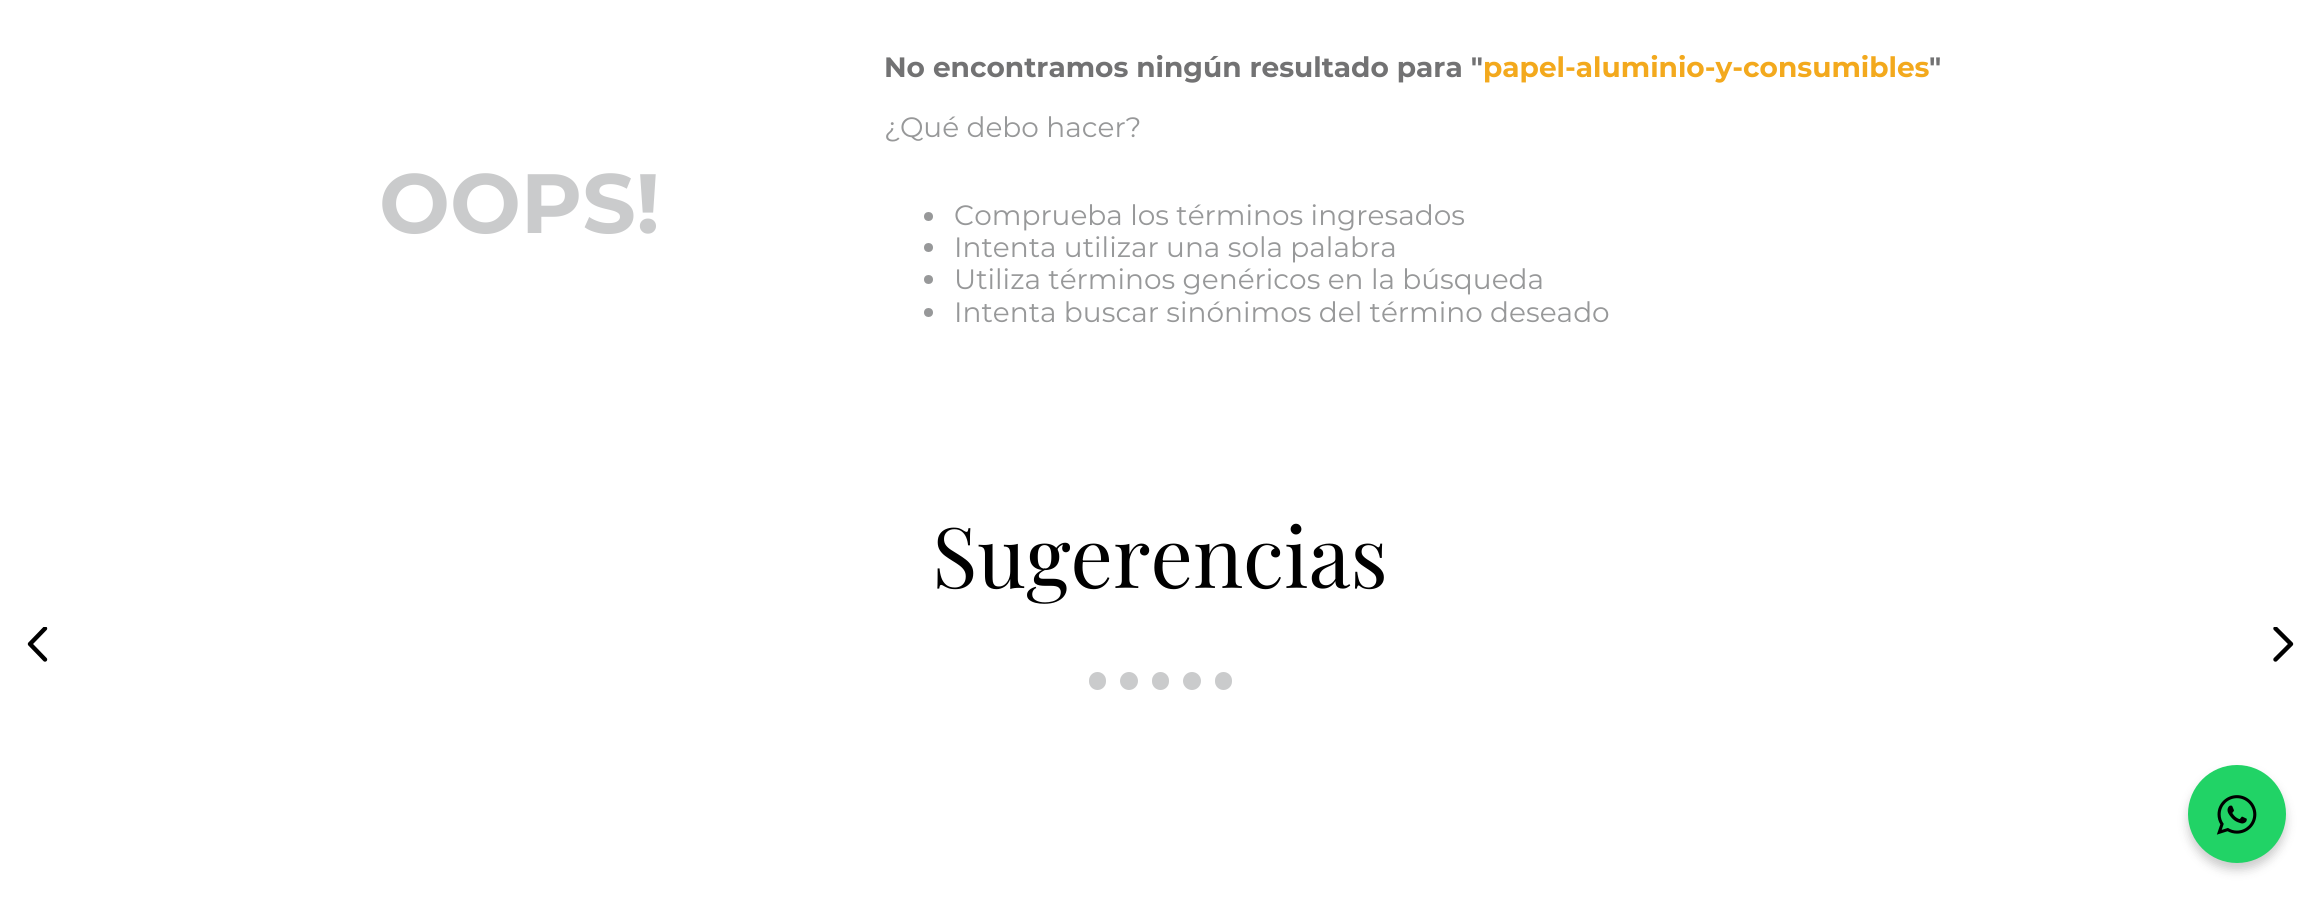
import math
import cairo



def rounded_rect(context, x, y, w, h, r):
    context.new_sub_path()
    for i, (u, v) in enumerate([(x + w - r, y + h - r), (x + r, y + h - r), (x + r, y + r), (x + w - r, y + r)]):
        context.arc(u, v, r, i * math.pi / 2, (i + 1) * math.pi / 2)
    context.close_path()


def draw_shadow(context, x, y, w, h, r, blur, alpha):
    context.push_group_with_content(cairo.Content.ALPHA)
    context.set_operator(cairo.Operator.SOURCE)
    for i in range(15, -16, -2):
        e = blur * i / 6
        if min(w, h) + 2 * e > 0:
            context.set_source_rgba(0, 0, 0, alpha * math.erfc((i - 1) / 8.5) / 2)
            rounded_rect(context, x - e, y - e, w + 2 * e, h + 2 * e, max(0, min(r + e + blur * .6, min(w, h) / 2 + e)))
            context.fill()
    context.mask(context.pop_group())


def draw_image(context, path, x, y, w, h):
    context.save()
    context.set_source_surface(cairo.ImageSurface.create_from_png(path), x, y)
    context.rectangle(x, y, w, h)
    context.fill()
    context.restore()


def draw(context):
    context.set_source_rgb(1, 1, 1)
    context.paint()
    context.set_source_rgb(151 / 255, 152 / 255, 153 / 255)
    context.arc(928.5, 216.5, 4.5, 0, 2 * math.pi)
    context.fill()
    context.arc(928.5, 247.5, 4.5, 0, 2 * math.pi)
    context.fill()
    context.arc(928.5, 279.5, 4.5, 0, 2 * math.pi)
    context.fill()
    context.arc(928.5, 312.5, 4.5, 0, 2 * math.pi)
    context.fill()
    context.save()
    context.rectangle(21, 627, 35, 35)
    context.clip()
    context.new_path()
    context.move_to(45, 628.5)
    context.line_to(30, 644)
    context.line_to(45, 659.5)
    context.set_source_rgb(0, 0, 0)
    context.set_line_width(4.4)
    context.set_line_cap(cairo.LineCap.ROUND)
    context.set_line_join(cairo.LineJoin.ROUND)
    context.stroke()
    context.restore()
    context.save()
    context.rectangle(2265, 627, 35, 35)
    context.clip()
    context.new_path()
    context.move_to(2275.5, 659.5)
    context.line_to(2291, 644)
    context.line_to(2275.5, 628.5)
    context.set_source_rgb(0, 0, 0)
    context.set_line_width(4.4)
    context.set_line_cap(cairo.LineCap.ROUND)
    context.set_line_join(cairo.LineJoin.ROUND)
    context.stroke()
    context.restore()
    context.set_source_rgb(202 / 255, 203 / 255, 204 / 255)
    rounded_rect(context, 1089, 672, 17, 18, 8.5)
    context.fill()
    context.arc(1129, 681, 9, 0, 2 * math.pi)
    context.fill()
    rounded_rect(context, 1152, 672, 17, 18, 8.5)
    context.fill()
    context.arc(1192, 681, 9, 0, 2 * math.pi)
    context.fill()
    rounded_rect(context, 1215, 672, 17, 18, 8.5)
    context.fill()
    context.set_source_rgb(0, 0, 0)
    draw_shadow(context, 2188, 772, 98, 98, 49, 5, 0.2)
    context.set_source_rgb(33 / 255, 211 / 255, 102 / 255)
    context.arc(2237, 814, 49, 0, 2 * math.pi)
    context.fill()
    draw_image(context, "images/1.png", 2216, 795, 41, 40)
    context.select_font_face("Montserrat", cairo.FontSlant.NORMAL, cairo.FontWeight.BOLD)
    context.set_font_size(84)
    context.set_source_rgb(202 / 255, 203 / 255, 204 / 255)
    context.move_to(379, 233)
    context.show_text("OOPS!")
    context.set_font_size(28)
    context.set_source_rgb(114 / 255, 114 / 255, 115 / 255)
    context.move_to(884, 77)
    context.show_text("No encontramos ningún resultado para \"")
    context.set_source_rgb(243 / 255, 169 / 255, 29 / 255)
    context.move_to(1483, 77)
    context.show_text("papel-aluminio-y-consumibles")
    context.set_source_rgb(114 / 255, 114 / 255, 115 / 255)
    context.move_to(1929, 77)
    context.show_text("\"")
    context.select_font_face("Montserrat")
    context.set_source_rgb(151 / 255, 152 / 255, 153 / 255)
    context.move_to(884, 137)
    context.show_text("¿Qué debo hacer?")
    context.move_to(954, 225)
    context.show_text("Comprueba los términos ingresados")
    context.move_to(954, 257)
    context.show_text("Intenta utilizar una sola palabra")
    context.move_to(954, 289)
    context.show_text("Utiliza términos genéricos en la búsqueda")
    context.move_to(954, 322)
    context.show_text("Intenta buscar sinónimos del término deseado")
    context.select_font_face("Playfair Display")
    context.set_font_size(84)
    context.set_source_rgb(0, 0, 0)
    context.move_to(932, 588)
    context.show_text("Sugerencias")


surface = cairo.ImageSurface(cairo.Format.RGB24, 2320, 897)
context = cairo.Context(surface)
options = cairo.FontOptions()
options.set_hint_metrics(cairo.HintMetrics.OFF)
options.set_hint_style(cairo.HintStyle.NONE)
context.set_font_options(options)
context.set_miter_limit(4)
draw(context)
surface.write_to_png("out.png")
